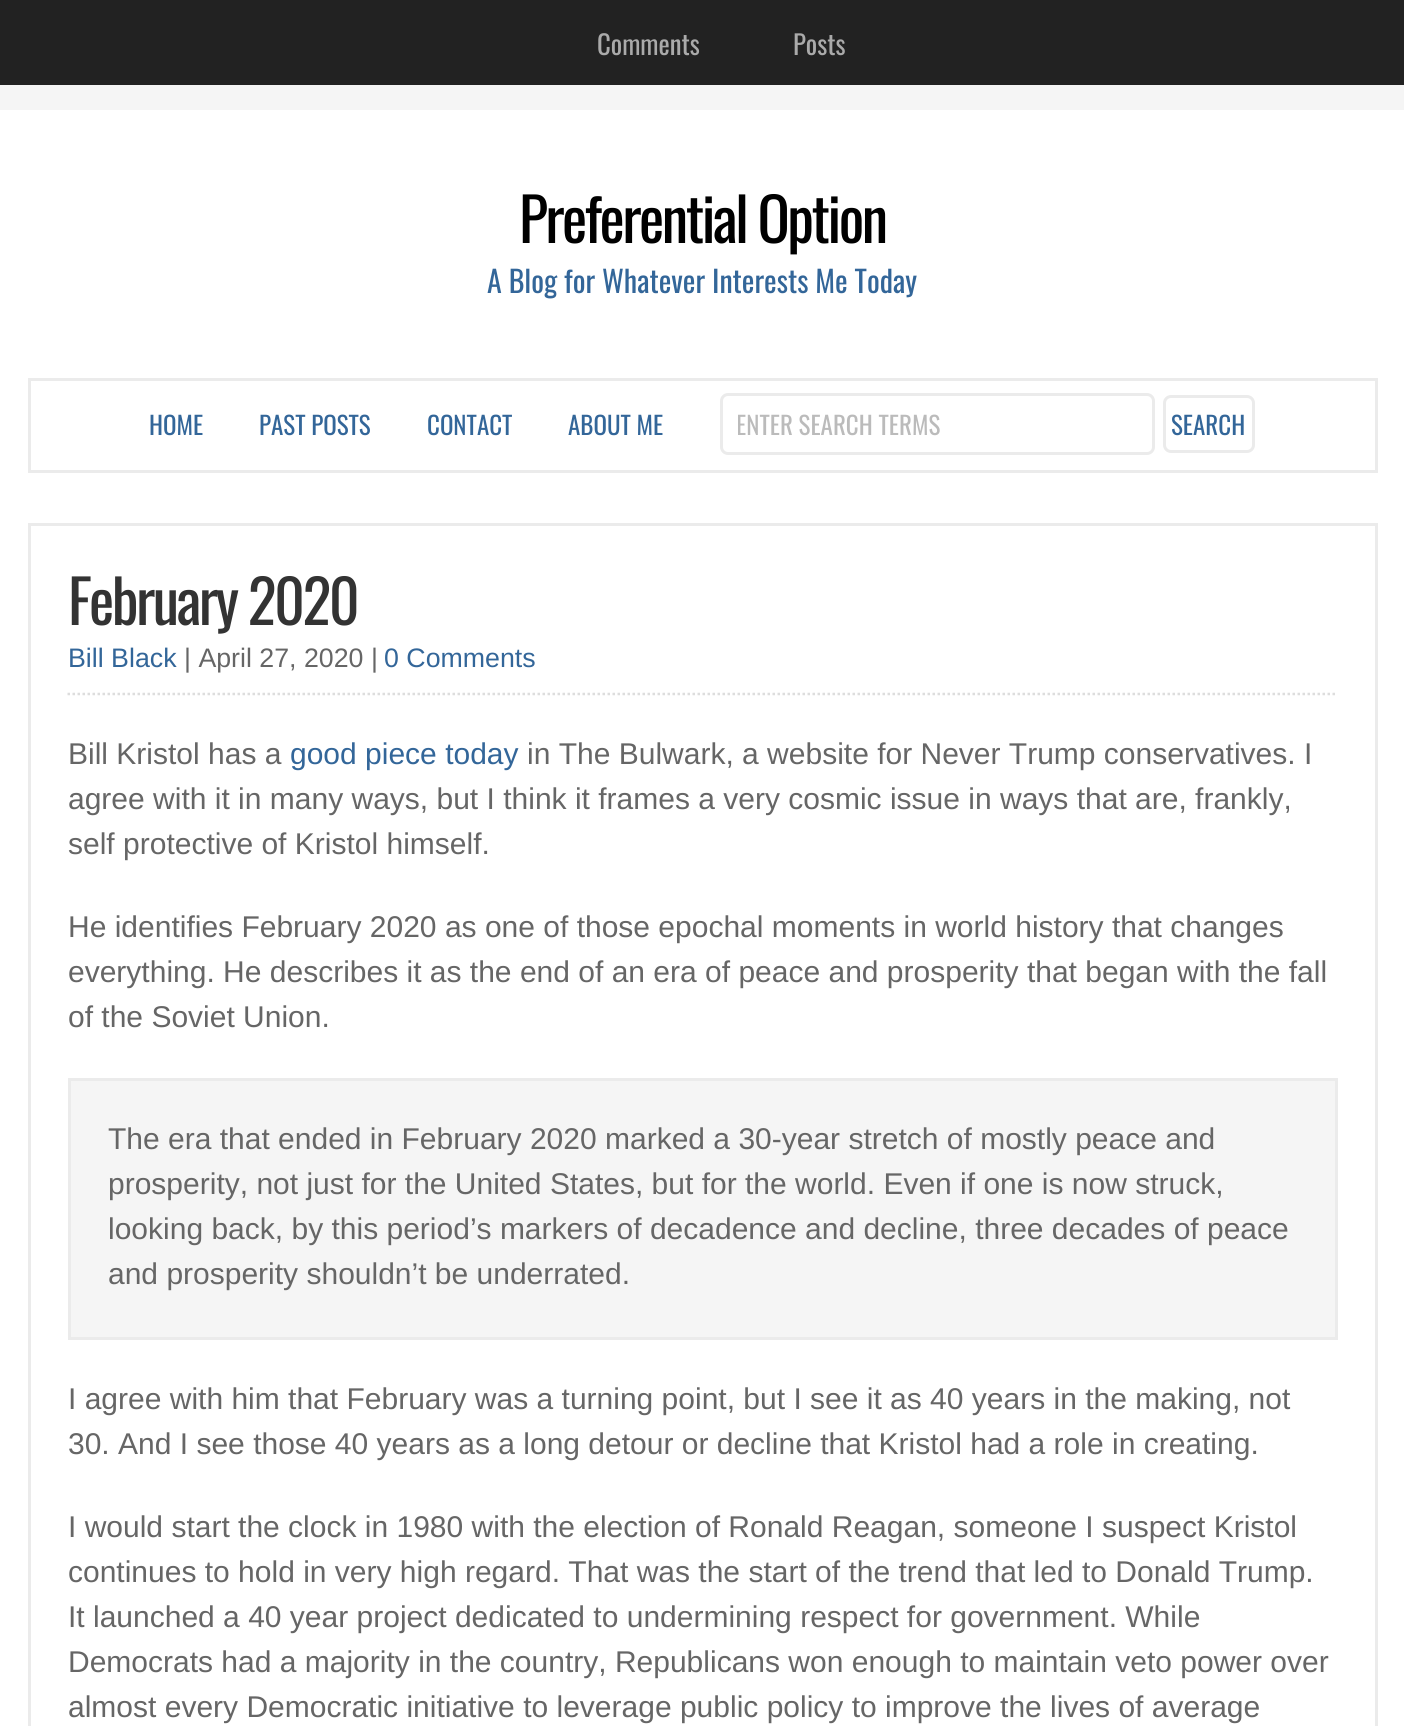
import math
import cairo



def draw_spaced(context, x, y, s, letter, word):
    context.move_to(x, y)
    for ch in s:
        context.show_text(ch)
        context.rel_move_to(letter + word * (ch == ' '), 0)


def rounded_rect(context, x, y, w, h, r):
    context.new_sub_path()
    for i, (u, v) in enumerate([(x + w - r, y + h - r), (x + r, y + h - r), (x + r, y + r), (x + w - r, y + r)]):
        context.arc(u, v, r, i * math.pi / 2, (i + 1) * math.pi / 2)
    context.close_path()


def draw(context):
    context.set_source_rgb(1, 1, 1)
    context.paint()
    context.set_source_rgb(34 / 255, 34 / 255, 34 / 255)
    context.rectangle(0, 0, 1404, 85)
    context.fill()
    context.set_source_rgb(245 / 255, 245 / 255, 245 / 255)
    context.rectangle(0, 85, 1404, 25)
    context.fill()
    context.rectangle(29.5, 379.5, 1347, 92)
    context.set_source_rgb(235 / 255, 235 / 255, 235 / 255)
    context.set_line_width(3)
    context.stroke()
    rounded_rect(context, 721.5, 394.5, 432, 59, 6.5)
    context.stroke()
    rounded_rect(context, 1164.5, 396.5, 89, 55, 6.5)
    context.stroke()
    context.rectangle(29.5, 524.5, 1347, 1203)
    context.stroke()
    context.new_path()
    context.move_to(67.5, 694)
    context.line_to(1337.5, 694)
    context.set_source_rgb(221 / 255, 221 / 255, 221 / 255)
    context.set_line_width(2.5)
    context.set_dash([2.5, 2.5])
    context.stroke()
    context.set_source_rgb(245 / 255, 245 / 255, 245 / 255)
    context.rectangle(69.5, 1079.5, 1267, 259)
    context.fill_preserve()
    context.set_source_rgb(235 / 255, 235 / 255, 235 / 255)
    context.set_line_width(3)
    context.set_dash([])
    context.stroke()
    context.select_font_face("Oswald")
    context.set_font_size(26.75)
    context.set_source_rgb(170 / 255, 170 / 255, 170 / 255)
    context.move_to(597, 55)
    context.show_text("Comments")
    context.move_to(793, 55)
    context.show_text("Posts")
    context.set_font_size(60)
    context.set_source_rgb(0, 0, 0)
    draw_spaced(context, 519, 243, "Preferential Option", -2.5, 0)
    context.set_font_size(30)
    context.set_source_rgb(51 / 255, 102 / 255, 153 / 255)
    context.move_to(487, 293)
    context.show_text("A Blog for Whatever Interests Me Today")
    context.set_font_size(25)
    context.move_to(149, 435)
    context.show_text("HOME")
    context.move_to(259, 435)
    context.show_text("PAST POSTS")
    context.move_to(427, 435)
    context.show_text("CONTACT")
    context.move_to(568, 435)
    context.show_text("ABOUT ME")
    context.save()
    context.rectangle(738, 405, 400, 38)
    context.clip()
    context.set_source_rgb(187 / 255, 187 / 255, 187 / 255)
    context.move_to(736, 435)
    context.show_text("ENTER SEARCH TERMS")
    context.restore()
    context.move_to(1171, 435)
    context.show_text("SEARCH")
    context.set_font_size(60)
    context.set_source_rgb(51 / 255, 51 / 255, 51 / 255)
    draw_spaced(context, 68, 625, "February 2020", -2.5, 0)
    context.select_font_face("Liberation Sans")
    context.set_font_size(26.75)
    context.set_source_rgb(51 / 255, 102 / 255, 153 / 255)
    context.move_to(68, 667)
    context.show_text("Bill Black")
    context.set_source_rgb(102 / 255, 102 / 255, 102 / 255)
    context.move_to(184, 667)
    context.show_text("| April 27, 2020 |")
    context.set_source_rgb(51 / 255, 102 / 255, 153 / 255)
    context.move_to(384, 667)
    context.show_text("0 Comments")
    context.set_font_size(30)
    context.set_source_rgb(102 / 255, 102 / 255, 102 / 255)
    context.move_to(68, 764)
    context.show_text("Bill Kristol has a")
    context.set_source_rgb(51 / 255, 102 / 255, 153 / 255)
    context.move_to(290, 764)
    context.show_text("good piece today")
    context.set_source_rgb(102 / 255, 102 / 255, 102 / 255)
    context.move_to(527, 764)
    context.show_text("in The Bulwark, a website for Never Trump conservatives. I")
    context.move_to(68, 809)
    context.show_text("agree with it in many ways, but I think it frames a very cosmic issue in ways that are, frankly,")
    context.move_to(68, 854)
    context.show_text("self protective of Kristol himself.")
    context.move_to(68, 937)
    context.show_text("He identifies February 2020 as one of those epochal moments in world history that changes")
    context.move_to(68, 982)
    context.show_text("everything. He describes it as the end of an era of peace and prosperity that began with the fall")
    context.move_to(68, 1027)
    context.show_text("of the Soviet Union.")
    context.move_to(108, 1149)
    context.show_text("The era that ended in February 2020 marked a 30-year stretch of mostly peace and")
    context.move_to(108, 1194)
    context.show_text("prosperity, not just for the United States, but for the world. Even if one is now struck,")
    context.move_to(108, 1239)
    context.show_text("looking back, by this period’s markers of decadence and decline, three decades of peace")
    context.move_to(108, 1284)
    context.show_text("and prosperity shouldn’t be underrated.")
    context.move_to(68, 1409)
    context.show_text("I agree with him that February was a turning point, but I see it as 40 years in the making, not")
    context.move_to(68, 1454)
    context.show_text("30. And I see those 40 years as a long detour or decline that Kristol had a role in creating.")
    context.move_to(68, 1537)
    context.show_text("I would start the clock in 1980 with the election of Ronald Reagan, someone I suspect Kristol")
    context.move_to(68, 1582)
    context.show_text("continues to hold in very high regard. That was the start of the trend that led to Donald Trump.")
    context.move_to(68, 1627)
    context.show_text("It launched a 40 year project dedicated to undermining respect for government. While")
    context.move_to(68, 1672)
    context.show_text("Democrats had a majority in the country, Republicans won enough to maintain veto power over")
    context.move_to(68, 1717)
    context.show_text("almost every Democratic initiative to leverage public policy to improve the lives of average")


surface = cairo.ImageSurface(cairo.Format.RGB24, 1404, 1726)
context = cairo.Context(surface)
options = cairo.FontOptions()
options.set_hint_metrics(cairo.HintMetrics.OFF)
options.set_hint_style(cairo.HintStyle.NONE)
context.set_font_options(options)
context.set_miter_limit(4)
draw(context)
surface.write_to_png("out.png")
